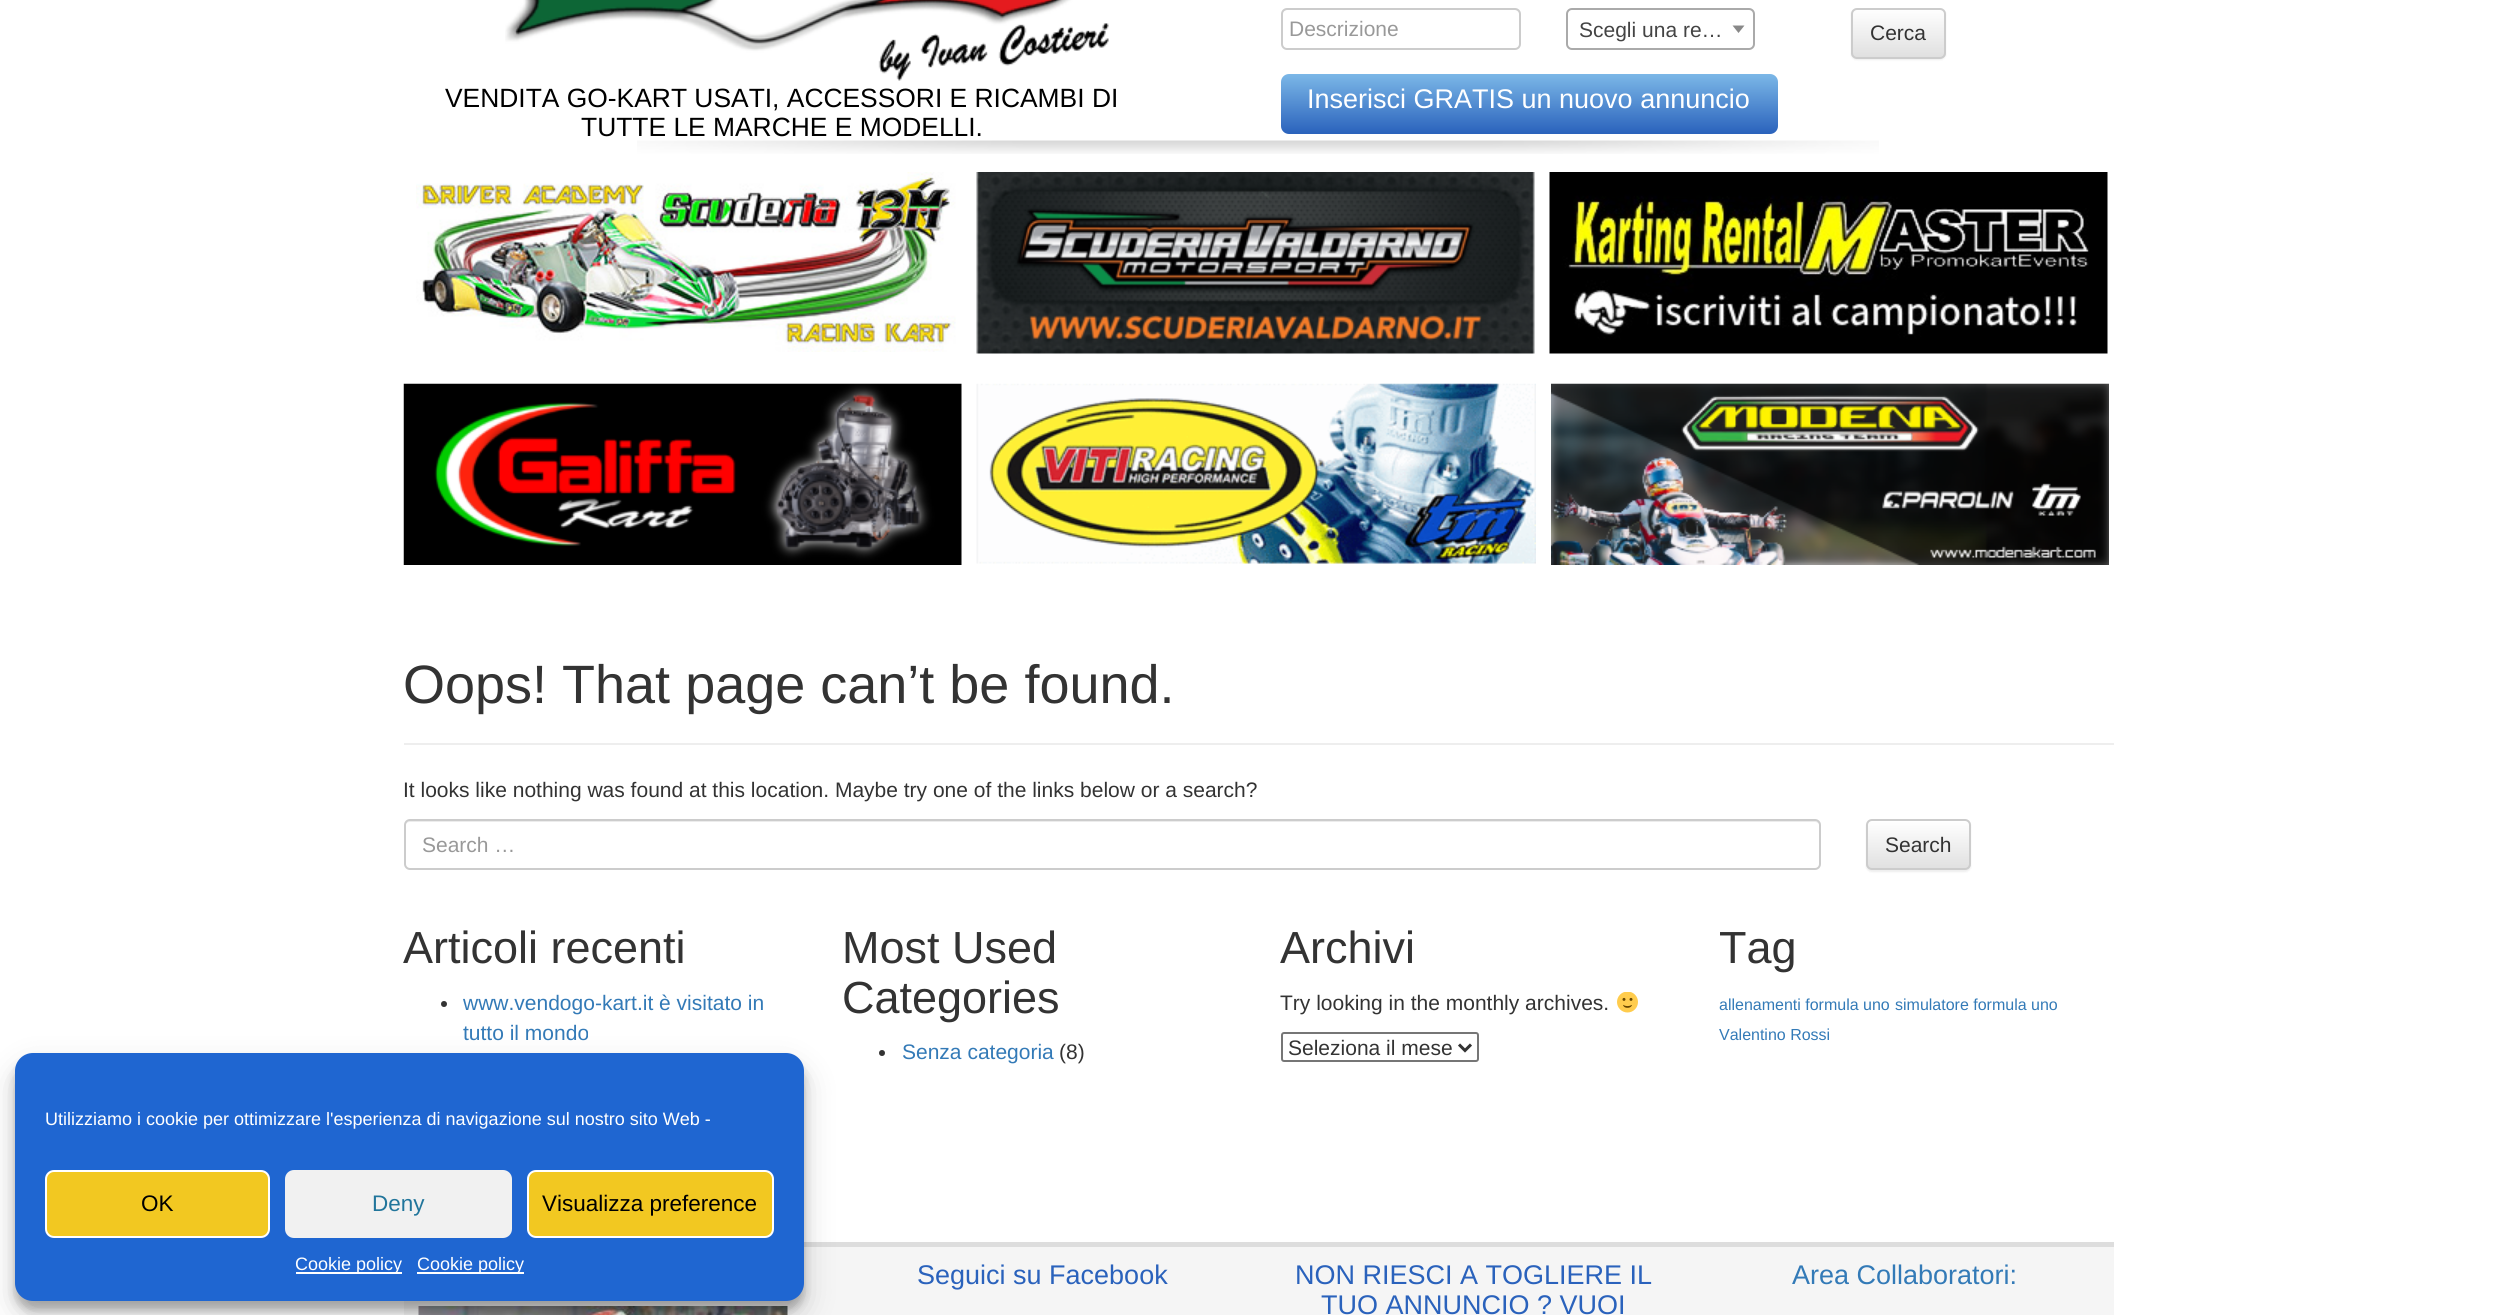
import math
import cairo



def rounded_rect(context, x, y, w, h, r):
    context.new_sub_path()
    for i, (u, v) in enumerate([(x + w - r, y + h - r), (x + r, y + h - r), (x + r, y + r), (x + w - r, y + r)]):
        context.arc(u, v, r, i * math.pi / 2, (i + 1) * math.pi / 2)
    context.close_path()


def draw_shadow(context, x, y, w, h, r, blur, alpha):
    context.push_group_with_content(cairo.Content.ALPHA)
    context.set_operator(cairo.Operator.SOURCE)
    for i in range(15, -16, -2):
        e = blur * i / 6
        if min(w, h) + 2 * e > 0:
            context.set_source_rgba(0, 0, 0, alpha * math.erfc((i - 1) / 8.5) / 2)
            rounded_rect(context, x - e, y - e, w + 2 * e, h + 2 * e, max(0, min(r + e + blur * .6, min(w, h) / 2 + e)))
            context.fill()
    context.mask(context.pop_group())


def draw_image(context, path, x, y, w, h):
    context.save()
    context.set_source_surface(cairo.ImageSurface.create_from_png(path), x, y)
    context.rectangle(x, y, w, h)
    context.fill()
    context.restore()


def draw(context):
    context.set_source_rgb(1, 1, 1)
    context.paint()
    context.set_source_rgb(245 / 255, 245 / 255, 245 / 255)
    context.rectangle(404, 1247, 1710, 68)
    context.fill()
    context.set_source_rgb(221 / 255, 221 / 255, 221 / 255)
    context.rectangle(804, 1242, 1310, 5)
    context.fill()
    draw_image(context, "images/10.png", 418, 1306, 370, 9)
    context.set_source_rgb(0, 0, 0)
    draw_shadow(context, 15, 1062, 789, 248, 18, 4.5, 0.23)
    draw_shadow(context, 15, 1068, 789, 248, 18, 15, 0.19)
    context.set_source_rgb(31 / 255, 102 / 255, 209 / 255)
    rounded_rect(context, 15, 1053, 789, 248, 18)
    context.fill()
    context.set_source_rgb(242 / 255, 200 / 255, 33 / 255)
    rounded_rect(context, 46, 1171, 223, 66, 8)
    context.fill_preserve()
    context.set_source_rgb(1, 1, 1)
    context.stroke()
    context.set_source_rgb(241 / 255, 241 / 255, 241 / 255)
    rounded_rect(context, 286, 1171, 225, 66, 8)
    context.fill_preserve()
    context.stroke()
    context.set_source_rgb(242 / 255, 200 / 255, 33 / 255)
    rounded_rect(context, 528, 1171, 245, 66, 8)
    context.fill_preserve()
    context.set_source_rgb(1, 1, 1)
    context.stroke()
    context.rectangle(296, 1272, 106, 2)
    context.fill()
    context.rectangle(417, 1272, 107, 2)
    context.fill()
    draw_image(context, "images/1.png", 637, 140, 1242, 14)
    draw_image(context, "images/2.png", 505, 0, 604, 81)
    context.set_source_rgb(236 / 255, 236 / 255, 236 / 255)
    context.new_path()
    context.move_to(1287, 10)
    context.line_to(1515, 10)
    context.curve_to(1517, 10, 1520, 13, 1520, 15)
    context.line_to(1520, 14)
    context.curve_to(1520, 11, 1518, 9, 1515, 9)
    context.line_to(1288, 9)
    context.curve_to(1286, 9, 1284, 10, 1283, 12)
    context.curve_to(1284, 11, 1286, 10, 1287, 10)
    context.close_path()
    context.fill()
    rounded_rect(context, 1282, 9, 238, 40, 5)
    context.set_source_rgb(204 / 255, 204 / 255, 204 / 255)
    context.stroke()
    rounded_rect(context, 1567, 9, 187, 40, 5)
    context.set_source_rgb(170 / 255, 170 / 255, 170 / 255)
    context.stroke()
    context.set_source_rgb(136 / 255, 136 / 255, 136 / 255)
    context.new_path()
    context.move_to(1732.5, 25.5)
    context.line_to(1744.5, 25.5)
    context.line_to(1738.5, 33)
    context.close_path()
    context.fill()
    context.set_source_rgb(0, 0, 0)
    draw_shadow(context, 1851, 9, 95, 51, 6, 1, 0.07)
    context.save()
    rounded_rect(context, 1851, 8, 95, 51, 6)
    context.clip()
    gradient = cairo.LinearGradient(1898, 9, 1898, 57)
    gradient.add_color_stop_rgba(0, 1, 1, 1, 1)
    gradient.add_color_stop_rgba(1, 224 / 255, 224 / 255, 224 / 255, 1)
    context.set_source(gradient)
    context.rectangle(1851, 9, 95, 48)
    context.fill()
    context.restore()
    rounded_rect(context, 1852, 9, 93, 49, 5)
    context.set_source_rgb(204 / 255, 204 / 255, 204 / 255)
    context.stroke()
    gradient = cairo.LinearGradient(1529, 73, 1529, 134)
    gradient.add_color_stop_rgba(0, 125 / 255, 185 / 255, 232 / 255, 1)
    gradient.add_color_stop_rgba(1, 42 / 255, 98 / 255, 188 / 255, 1)
    gradient.add_color_stop_rgba(1, 125 / 255, 185 / 255, 232 / 255, 1)
    context.set_source(gradient)
    rounded_rect(context, 1281, 74, 497, 60, 8)
    context.fill()
    draw_image(context, "images/3.png", 416, 172, 540, 180)
    draw_image(context, "images/4.png", 976, 172, 559, 182)
    draw_image(context, "images/5.png", 1549, 172, 559, 182)
    draw_image(context, "images/6.png", 403, 383, 559, 182)
    draw_image(context, "images/7.png", 976, 383, 560, 181)
    draw_image(context, "images/8.png", 1551, 383, 558, 182)
    context.set_source_rgb(238 / 255, 238 / 255, 238 / 255)
    context.rectangle(404, 743, 1710, 2)
    context.fill()
    context.set_source_rgb(236 / 255, 236 / 255, 236 / 255)
    context.new_path()
    context.move_to(410, 822)
    context.line_to(1815, 822)
    context.curve_to(1817, 822, 1820, 824, 1820, 826)
    context.curve_to(1820, 823, 1818, 821, 1815, 821)
    context.line_to(410, 821)
    context.curve_to(407, 821, 405, 823, 405, 826)
    context.curve_to(405, 824, 407, 822, 410, 822)
    context.close_path()
    context.fill()
    rounded_rect(context, 405, 820, 1415, 49, 5)
    context.set_source_rgb(204 / 255, 204 / 255, 204 / 255)
    context.stroke()
    context.set_source_rgb(0, 0, 0)
    draw_shadow(context, 1866, 821, 105, 51, 6, 1, 0.07)
    context.save()
    rounded_rect(context, 1866, 819, 105, 51, 6)
    context.clip()
    gradient = cairo.LinearGradient(1919, 821, 1919, 869)
    gradient.add_color_stop_rgba(0, 1, 1, 1, 1)
    gradient.add_color_stop_rgba(1, 224 / 255, 224 / 255, 224 / 255, 1)
    context.set_source(gradient)
    context.rectangle(1866, 821, 105, 48)
    context.fill()
    context.restore()
    rounded_rect(context, 1867, 820, 103, 49, 5)
    context.set_source_rgb(204 / 255, 204 / 255, 204 / 255)
    context.stroke()
    context.set_source_rgb(51 / 255, 51 / 255, 51 / 255)
    context.arc(444, 1004, 3, 0, 2 * math.pi)
    context.fill()
    context.arc(882, 1053, 3, 0, 2 * math.pi)
    context.fill()
    draw_image(context, "images/9.png", 1617, 992, 21, 21)
    rounded_rect(context, 1282, 1033, 196, 28, 2)
    context.set_source_rgb(118 / 255, 118 / 255, 118 / 255)
    context.stroke()
    context.new_path()
    context.move_to(1459, 1044.5)
    context.line_to(1465, 1050.5)
    context.line_to(1471, 1044.5)
    context.set_source_rgb(51 / 255, 51 / 255, 51 / 255)
    context.set_line_width(3)
    context.stroke()
    context.select_font_face("Liberation Sans")
    context.set_font_size(18)
    context.set_source_rgb(1, 1, 1)
    context.move_to(45, 1125)
    context.show_text("Utilizziamo i cookie per ottimizzare l'esperienza di navigazione sul nostro sito Web -")
    context.set_font_size(22.5)
    context.set_source_rgb(0, 0, 0)
    context.move_to(141, 1211)
    context.show_text("OK")
    context.set_source_rgb(33 / 255, 117 / 255, 155 / 255)
    context.move_to(372, 1211)
    context.show_text("Deny")
    context.set_source_rgb(0, 0, 0)
    context.move_to(542, 1211)
    context.show_text("Visualizza preference")
    context.set_font_size(18)
    context.set_source_rgb(1, 1, 1)
    context.move_to(295, 1270)
    context.show_text("Cookie policy")
    context.move_to(417, 1270)
    context.show_text("Cookie policy")
    context.set_font_size(26.4)
    context.set_source_rgb(0, 0, 0)
    context.move_to(445, 107)
    context.show_text("VENDITA GO-KART USATI, ACCESSORI E RICAMBI DI")
    context.move_to(581, 136)
    context.show_text("TUTTE LE MARCHE E MODELLI.")
    context.set_font_size(21)
    context.set_source_rgb(153 / 255, 153 / 255, 153 / 255)
    context.move_to(1289, 36)
    context.show_text("Descrizione")
    context.set_source_rgb(68 / 255, 68 / 255, 68 / 255)
    context.move_to(1579, 37)
    context.show_text("Scegli una re…")
    context.set_source_rgb(51 / 255, 51 / 255, 51 / 255)
    context.move_to(1870, 40)
    context.show_text("Cerca")
    context.set_font_size(27)
    context.set_source_rgb(1, 1, 1)
    context.move_to(1307, 108)
    context.show_text("Inserisci GRATIS un nuovo annuncio")
    context.set_font_size(54)
    context.set_source_rgb(51 / 255, 51 / 255, 51 / 255)
    context.move_to(403, 703)
    context.show_text("Oops! That page can’t be found.")
    context.set_font_size(21)
    context.move_to(403, 797)
    context.show_text("It looks like nothing was found at this location. Maybe try one of the links below or a search?")
    context.set_source_rgb(153 / 255, 153 / 255, 153 / 255)
    context.move_to(422, 852)
    context.show_text("Search …")
    context.set_source_rgb(51 / 255, 51 / 255, 51 / 255)
    context.move_to(1885, 852)
    context.show_text("Search")
    context.set_font_size(45)
    context.move_to(403, 963)
    context.show_text("Articoli recenti")
    context.set_font_size(21)
    context.set_source_rgb(51 / 255, 122 / 255, 183 / 255)
    context.move_to(463, 1010)
    context.show_text("www.vendogo-kart.it è visitato in")
    context.move_to(463, 1040)
    context.show_text("tutto il mondo")
    context.set_font_size(45)
    context.set_source_rgb(51 / 255, 51 / 255, 51 / 255)
    context.move_to(842, 963)
    context.show_text("Most Used")
    context.move_to(842, 1013)
    context.show_text("Categories")
    context.set_font_size(21)
    context.set_source_rgb(51 / 255, 122 / 255, 183 / 255)
    context.move_to(902, 1059)
    context.show_text("Senza categoria")
    context.set_source_rgb(51 / 255, 51 / 255, 51 / 255)
    context.move_to(1059, 1059)
    context.show_text("(8)")
    context.set_font_size(45)
    context.move_to(1280, 963)
    context.show_text("Archivi")
    context.set_font_size(21)
    context.move_to(1280, 1010)
    context.show_text("Try looking in the monthly archives.")
    context.move_to(1288, 1055)
    context.show_text("Seleziona il mese")
    context.set_font_size(45)
    context.move_to(1719, 963)
    context.show_text("Tag")
    context.set_font_size(16)
    context.set_source_rgb(51 / 255, 122 / 255, 183 / 255)
    context.move_to(1719, 1010)
    context.show_text("allenamenti formula uno")
    context.move_to(1895, 1010)
    context.show_text("simulatore formula uno")
    context.move_to(1719, 1040)
    context.show_text("Valentino Rossi")
    context.set_font_size(27)
    context.set_source_rgb(42 / 255, 98 / 255, 188 / 255)
    context.move_to(917, 1284)
    context.show_text("Seguici su Facebook")
    context.move_to(1295, 1284)
    context.show_text("NON RIESCI A TOGLIERE IL")
    context.move_to(1321, 1314)
    context.show_text("TUO ANNUNCIO ? VUOI")
    context.set_source_rgb(51 / 255, 122 / 255, 183 / 255)
    context.move_to(1792, 1284)
    context.show_text("Area Collaboratori:")


surface = cairo.ImageSurface(cairo.Format.RGB24, 2515, 1315)
context = cairo.Context(surface)
options = cairo.FontOptions()
options.set_hint_metrics(cairo.HintMetrics.OFF)
options.set_hint_style(cairo.HintStyle.NONE)
context.set_font_options(options)
context.set_miter_limit(4)
draw(context)
surface.write_to_png("out.png")
